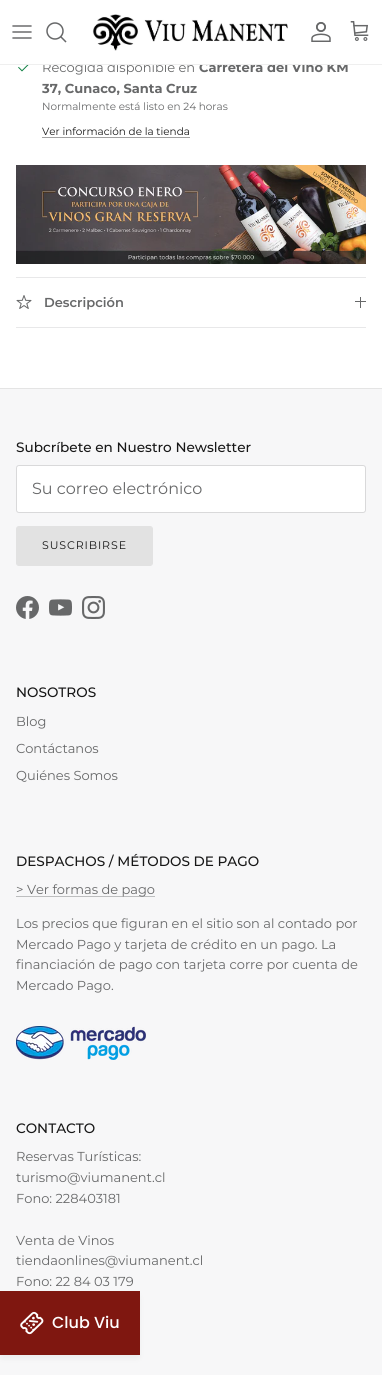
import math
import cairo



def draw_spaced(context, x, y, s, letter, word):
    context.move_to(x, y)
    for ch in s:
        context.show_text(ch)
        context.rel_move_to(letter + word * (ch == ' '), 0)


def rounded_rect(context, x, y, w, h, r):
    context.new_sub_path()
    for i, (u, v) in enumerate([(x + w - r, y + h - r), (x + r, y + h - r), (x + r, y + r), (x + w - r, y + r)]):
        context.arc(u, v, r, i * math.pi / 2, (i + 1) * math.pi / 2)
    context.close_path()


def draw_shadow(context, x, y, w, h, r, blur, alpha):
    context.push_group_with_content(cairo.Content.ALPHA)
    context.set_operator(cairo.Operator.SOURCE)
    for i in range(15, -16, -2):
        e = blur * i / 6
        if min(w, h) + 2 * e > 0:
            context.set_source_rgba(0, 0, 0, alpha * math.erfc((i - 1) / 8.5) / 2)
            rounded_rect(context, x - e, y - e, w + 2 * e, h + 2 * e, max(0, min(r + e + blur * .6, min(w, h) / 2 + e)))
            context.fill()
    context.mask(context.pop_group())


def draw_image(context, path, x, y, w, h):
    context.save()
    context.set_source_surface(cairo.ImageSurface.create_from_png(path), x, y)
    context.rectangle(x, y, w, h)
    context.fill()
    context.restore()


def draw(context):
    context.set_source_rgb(1, 1, 1)
    context.paint()
    context.new_path()
    context.move_to(13, 32)
    context.line_to(31, 32)
    context.move_to(13, 26)
    context.line_to(31, 26)
    context.move_to(13, 38)
    context.line_to(31, 38)
    context.set_source_rgb(103 / 255, 104 / 255, 105 / 255)
    context.set_line_width(1.5)
    context.set_line_cap(cairo.LineCap.ROUND)
    context.set_line_join(cairo.LineJoin.ROUND)
    context.stroke()
    context.arc(55, 31, 8, 0, 2 * math.pi)
    context.set_line_cap(cairo.LineCap.BUTT)
    context.set_line_join(cairo.LineJoin.MITER)
    context.stroke()
    context.new_path()
    context.move_to(61, 37)
    context.line_to(65.5, 41.5)
    context.set_line_cap(cairo.LineCap.SQUARE)
    context.stroke()
    draw_image(context, "images/1.png", 92, 14, 196, 37)
    draw_image(context, "images/2.png", 311, 22, 20, 20)
    draw_image(context, "images/3.png", 350, 21, 19, 20)
    draw_image(context, "images/4.png", 18, 65, 11, 7)
    context.set_source_rgb(162 / 255, 162 / 255, 162 / 255)
    context.rectangle(42, 137, 148, 1)
    context.fill()
    draw_image(context, "images/5.png", 16, 165, 350, 99)
    context.set_source_rgb(232 / 255, 232 / 255, 233 / 255)
    context.rectangle(16, 277, 350, 1)
    context.fill()
    context.rectangle(16, 327, 350, 1)
    context.fill()
    draw_image(context, "images/6.png", 16, 295, 16, 14)
    context.set_source_rgb(103 / 255, 104 / 255, 105 / 255)
    context.rectangle(360, 297, 1, 11)
    context.fill()
    context.rectangle(355, 301, 11, 1)
    context.fill()
    context.set_source_rgb(247 / 255, 247 / 255, 248 / 255)
    context.rectangle(0, 389, 382, 986)
    context.fill()
    context.set_source_rgb(228 / 255, 228 / 255, 228 / 255)
    context.rectangle(0, 388, 382, 1)
    context.fill()
    context.set_source_rgb(1, 1, 1)
    rounded_rect(context, 16.5, 465.5, 349, 47, 2.5)
    context.fill_preserve()
    context.set_source_rgb(217 / 255, 217 / 255, 218 / 255)
    context.set_line_width(1)
    context.set_line_cap(cairo.LineCap.BUTT)
    context.stroke()
    context.set_source_rgb(226 / 255, 226 / 255, 226 / 255)
    rounded_rect(context, 16.5, 526.5, 136, 39, 2.5)
    context.fill_preserve()
    context.stroke()
    draw_image(context, "images/7.png", 16, 596, 23, 23)
    draw_image(context, "images/8.png", 49, 599, 23, 17)
    draw_image(context, "images/9.png", 82, 596, 23, 23)
    context.set_source_rgb(189 / 255, 190 / 255, 191 / 255)
    context.rectangle(16, 896, 139, 1)
    context.fill()
    draw_image(context, "images/10.png", 16, 1026, 130, 34)
    context.set_source_rgb(68 / 255, 68 / 255, 68 / 255)
    draw_shadow(context, 2, 1297, 136, 60, 0, 4, 0.08)
    context.set_source_rgb(127 / 255, 23 / 255, 16 / 255)
    context.rectangle(0, 1291, 140, 64)
    context.fill()
    draw_image(context, "images/11.png", 20, 1311, 24, 24)
    context.select_font_face("Montserrat")
    context.set_font_size(13)
    context.set_source_rgb(103 / 255, 104 / 255, 105 / 255)
    context.move_to(42, 72)
    context.show_text("Recogida disponible en")
    context.select_font_face("Montserrat", cairo.FontSlant.NORMAL, cairo.FontWeight.BOLD)
    context.move_to(199, 72)
    context.show_text("Carretera del Vino KM")
    context.set_source_rgb(239 / 255, 239 / 255, 239 / 255)
    context.rectangle(0, 64, 382, 1)
    context.fill()
    context.set_source_rgb(1, 1, 1)
    context.rectangle(43, 61, 305, 3)
    context.fill()
    context.set_source_rgb(103 / 255, 104 / 255, 105 / 255)
    context.move_to(42, 93)
    context.show_text("37, Cunaco, Santa Cruz")
    context.select_font_face("Montserrat")
    context.set_font_size(10.4)
    context.move_to(42, 110)
    context.show_text("Normalmente está listo en 24 horas")
    context.set_source_rgb(23 / 255, 23 / 255, 23 / 255)
    context.move_to(42, 135)
    context.show_text("Ver información de la tienda")
    context.select_font_face("Montserrat SemiBold")
    context.set_font_size(13)
    context.set_source_rgb(103 / 255, 104 / 255, 105 / 255)
    context.move_to(44, 307)
    context.show_text("Descripción")
    context.select_font_face("Montserrat Medium")
    context.set_font_size(13.6)
    context.set_source_rgb(23 / 255, 23 / 255, 23 / 255)
    context.move_to(16, 452)
    context.show_text("Subcríbete en Nuestro Newsletter")
    context.select_font_face("Montserrat")
    context.set_font_size(16)
    context.set_source_rgb(103 / 255, 104 / 255, 105 / 255)
    context.move_to(32, 494)
    context.show_text("Su correo electrónico")
    context.set_font_size(11)
    context.set_source_rgb(23 / 255, 23 / 255, 23 / 255)
    draw_spaced(context, 42, 549, "SUSCRIBIRSE", 0.9, 0)
    context.select_font_face("Montserrat Medium")
    context.set_font_size(13.6)
    context.move_to(16, 697)
    context.show_text("NOSOTROS")
    context.select_font_face("Montserrat")
    context.set_font_size(13)
    context.set_source_rgb(103 / 255, 104 / 255, 105 / 255)
    context.move_to(16, 726)
    context.show_text("Blog")
    context.move_to(16, 753)
    context.show_text("Contáctanos")
    context.move_to(16, 780)
    context.show_text("Quiénes Somos")
    context.select_font_face("Montserrat Medium")
    context.set_font_size(13.6)
    context.set_source_rgb(23 / 255, 23 / 255, 23 / 255)
    context.move_to(16, 866)
    context.show_text("DESPACHOS / MÉTODOS DE PAGO")
    context.select_font_face("Montserrat")
    context.set_font_size(13)
    context.set_source_rgb(103 / 255, 104 / 255, 105 / 255)
    context.move_to(16, 894)
    context.show_text("> Ver formas de pago")
    context.move_to(16, 928)
    context.show_text("Los precios que figuran en el sitio son al contado por")
    context.move_to(16, 949)
    context.show_text("Mercado Pago y tarjeta de crédito en un pago. La")
    context.move_to(16, 969)
    context.show_text("financiación de pago con tarjeta corre por cuenta de")
    context.move_to(16, 990)
    context.show_text("Mercado Pago.")
    context.select_font_face("Montserrat Medium")
    context.set_font_size(13.6)
    context.set_source_rgb(23 / 255, 23 / 255, 23 / 255)
    context.move_to(16, 1133)
    context.show_text("CONTACTO")
    context.select_font_face("Montserrat")
    context.set_font_size(13)
    context.set_source_rgb(103 / 255, 104 / 255, 105 / 255)
    context.move_to(16, 1161)
    context.show_text("Reservas Turísticas:")
    context.move_to(16, 1182)
    context.show_text("turismo@viumanent.cl")
    context.move_to(16, 1203)
    context.show_text("Fono: 228403181")
    context.move_to(16, 1245)
    context.show_text("Venta de Vinos")
    context.move_to(16, 1265)
    context.show_text("tiendaonlines@viumanent.cl")
    context.move_to(16, 1286)
    context.show_text("Fono: 22 84 03 179")
    context.select_font_face("Poppins Medium")
    context.set_font_size(16)
    context.set_source_rgb(1, 1, 1)
    context.move_to(52, 1328)
    context.show_text("Club Viu")


surface = cairo.ImageSurface(cairo.Format.RGB24, 382, 1375)
context = cairo.Context(surface)
options = cairo.FontOptions()
options.set_hint_metrics(cairo.HintMetrics.OFF)
options.set_hint_style(cairo.HintStyle.NONE)
context.set_font_options(options)
context.set_miter_limit(4)
draw(context)
surface.write_to_png("out.png")
